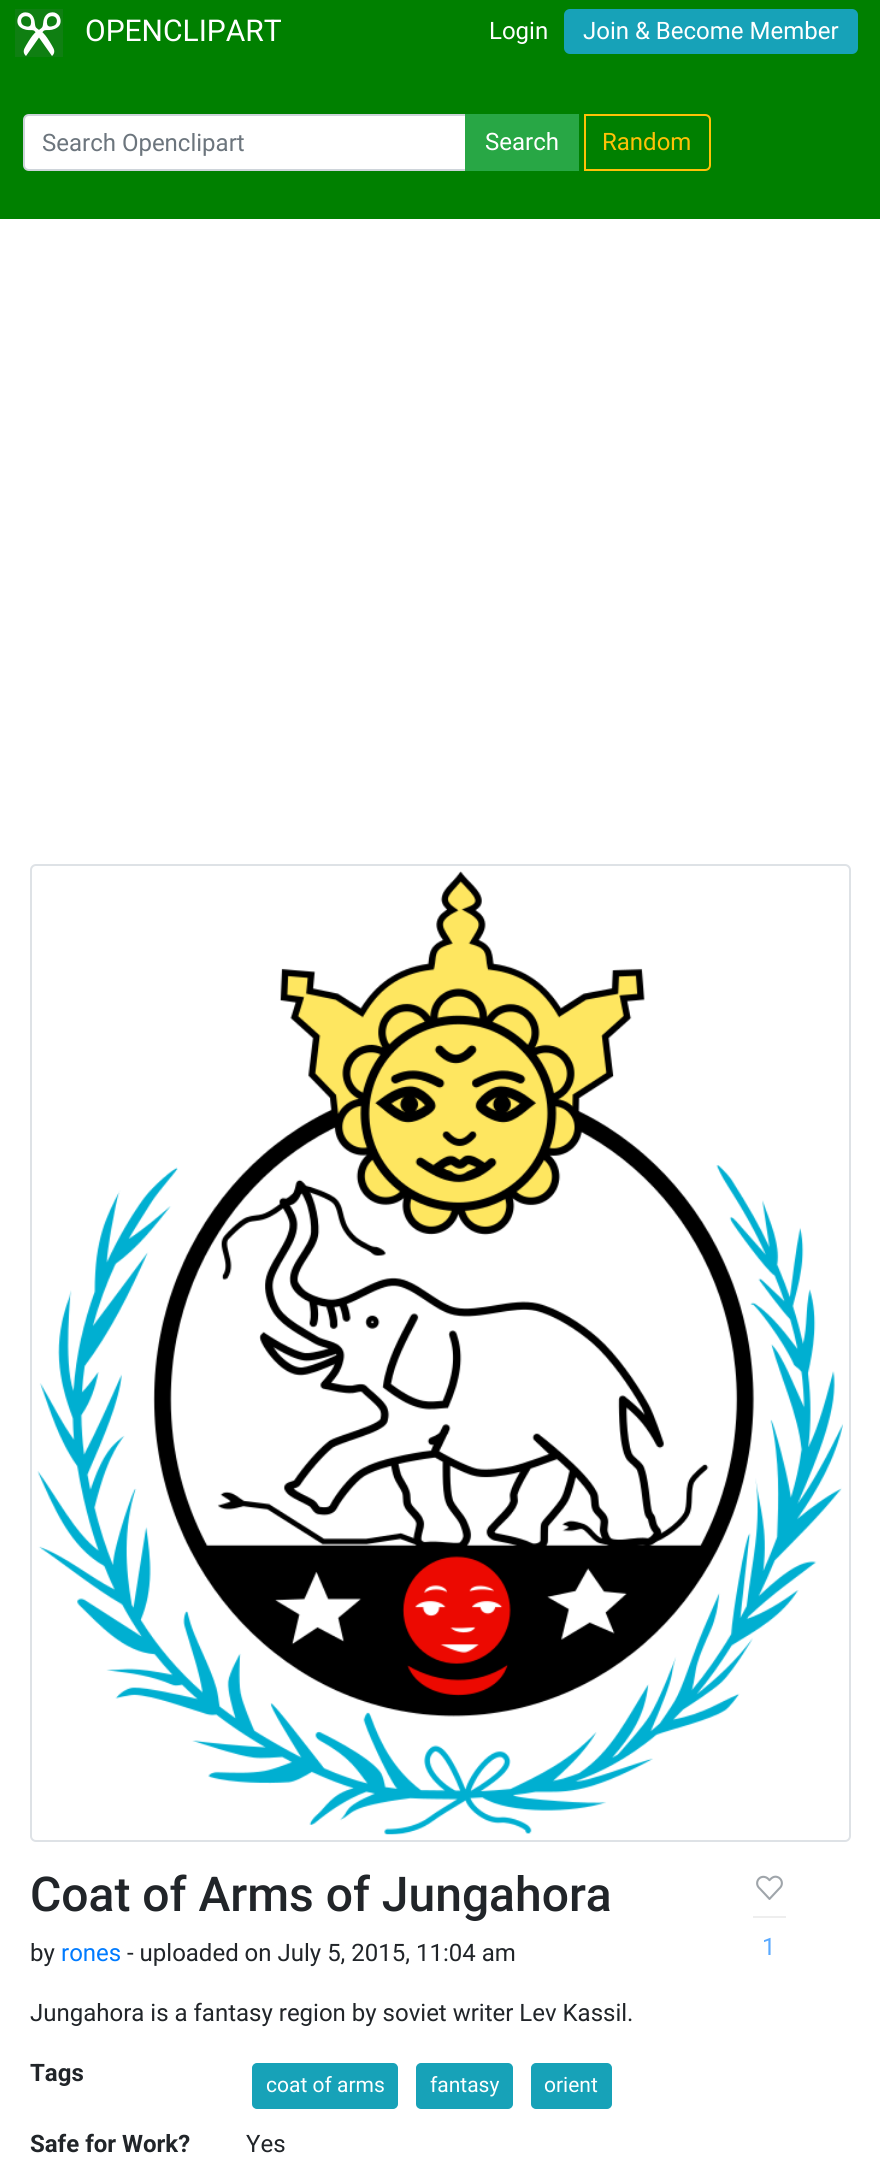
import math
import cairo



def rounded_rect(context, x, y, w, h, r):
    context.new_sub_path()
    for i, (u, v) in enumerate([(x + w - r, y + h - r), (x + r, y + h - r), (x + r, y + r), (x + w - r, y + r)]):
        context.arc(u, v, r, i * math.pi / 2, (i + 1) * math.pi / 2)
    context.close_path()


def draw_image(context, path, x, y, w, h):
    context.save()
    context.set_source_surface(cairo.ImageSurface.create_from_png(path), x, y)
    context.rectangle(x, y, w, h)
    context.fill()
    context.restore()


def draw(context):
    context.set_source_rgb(1, 1, 1)
    context.paint()
    context.set_source_rgb(0, 128 / 255, 0)
    context.rectangle(0, 0, 880, 219)
    context.fill()
    draw_image(context, "images/1.png", 15, 9, 48, 48)
    context.set_source_rgb(23 / 255, 162 / 255, 184 / 255)
    rounded_rect(context, 565, 10, 292, 43, 5)
    context.fill_preserve()
    context.stroke()
    context.set_source_rgb(1, 1, 1)
    context.new_path()
    context.move_to(29, 115)
    context.line_to(466, 115)
    context.line_to(466, 170)
    context.line_to(29, 170)
    context.curve_to(26, 170, 24, 168, 24, 165)
    context.line_to(24, 120)
    context.curve_to(24, 117, 26, 115, 29, 115)
    context.close_path()
    context.fill_preserve()
    context.set_source_rgb(206 / 255, 212 / 255, 218 / 255)
    context.stroke()
    context.set_source_rgb(40 / 255, 167 / 255, 69 / 255)
    context.rectangle(465, 114, 114, 57)
    context.fill()
    context.new_path()
    context.move_to(585, 115)
    context.line_to(705, 115)
    context.curve_to(708, 115, 710, 117, 710, 120)
    context.line_to(710, 165)
    context.curve_to(710, 168, 708, 170, 705, 170)
    context.line_to(585, 170)
    context.close_path()
    context.set_source_rgb(1, 193 / 255, 7 / 255)
    context.stroke()
    rounded_rect(context, 31, 865, 819, 976, 5)
    context.set_source_rgb(222 / 255, 226 / 255, 230 / 255)
    context.stroke()
    draw_image(context, "images/2.png", 37, 871, 806, 964)
    draw_image(context, "images/3.png", 756, 1875, 27, 25)
    context.set_source_rgb(238 / 255, 238 / 255, 238 / 255)
    context.rectangle(753, 1916, 33, 2)
    context.fill()
    context.set_source_rgb(23 / 255, 162 / 255, 184 / 255)
    rounded_rect(context, 253, 2064, 144, 44, 4)
    context.fill_preserve()
    context.stroke()
    rounded_rect(context, 417, 2064, 95, 44, 4)
    context.fill_preserve()
    context.stroke()
    rounded_rect(context, 532, 2064, 79, 44, 4)
    context.fill_preserve()
    context.stroke()
    context.select_font_face("Roboto")
    context.set_font_size(30)
    context.set_source_rgb(1, 1, 1)
    context.move_to(85, 41)
    context.show_text("OPENCLIPART")
    context.set_font_size(24)
    context.move_to(489, 39)
    context.show_text("Login")
    context.move_to(583, 39)
    context.show_text("Join & Become Member")
    context.set_source_rgb(108 / 255, 117 / 255, 125 / 255)
    context.move_to(42, 151)
    context.show_text("Search Openclipart")
    context.set_source_rgb(1, 1, 1)
    context.move_to(485, 150)
    context.show_text("Search")
    context.set_source_rgb(1, 193 / 255, 7 / 255)
    context.move_to(602, 150)
    context.show_text("Random")
    context.select_font_face("Roboto Medium")
    context.set_font_size(48)
    context.set_source_rgb(33 / 255, 37 / 255, 41 / 255)
    context.move_to(30, 1911)
    context.show_text("Coat of Arms of Jungahora")
    context.select_font_face("Roboto")
    context.set_font_size(24)
    context.move_to(30, 1961)
    context.show_text("by")
    context.set_source_rgb(0, 123 / 255, 1)
    context.move_to(61, 1961)
    context.show_text("rones")
    context.set_source_rgb(33 / 255, 37 / 255, 41 / 255)
    context.move_to(127, 1961)
    context.show_text("- uploaded on July 5, 2015, 11:04 am")
    context.move_to(30, 2021)
    context.show_text("Jungahora is a fantasy region by soviet writer Lev Kassil.")
    context.set_source_rgb(89 / 255, 169 / 255, 1)
    context.move_to(762, 1955)
    context.show_text("1")
    context.select_font_face("Roboto", cairo.FontSlant.NORMAL, cairo.FontWeight.BOLD)
    context.set_source_rgb(33 / 255, 37 / 255, 41 / 255)
    context.move_to(30, 2081)
    context.show_text("Tags")
    context.select_font_face("Roboto")
    context.set_font_size(21)
    context.set_source_rgb(1, 1, 1)
    context.move_to(266, 2092)
    context.show_text("coat of arms")
    context.move_to(430, 2092)
    context.show_text("fantasy")
    context.move_to(544, 2092)
    context.show_text("orient")
    context.select_font_face("Roboto", cairo.FontSlant.NORMAL, cairo.FontWeight.BOLD)
    context.set_font_size(24)
    context.set_source_rgb(33 / 255, 37 / 255, 41 / 255)
    context.move_to(30, 2152)
    context.show_text("Safe for Work?")
    context.select_font_face("Roboto")
    context.move_to(246, 2152)
    context.show_text("Yes")


surface = cairo.ImageSurface(cairo.Format.RGB24, 880, 2164)
context = cairo.Context(surface)
options = cairo.FontOptions()
options.set_hint_metrics(cairo.HintMetrics.OFF)
options.set_hint_style(cairo.HintStyle.NONE)
context.set_font_options(options)
context.set_miter_limit(4)
draw(context)
surface.write_to_png("out.png")
